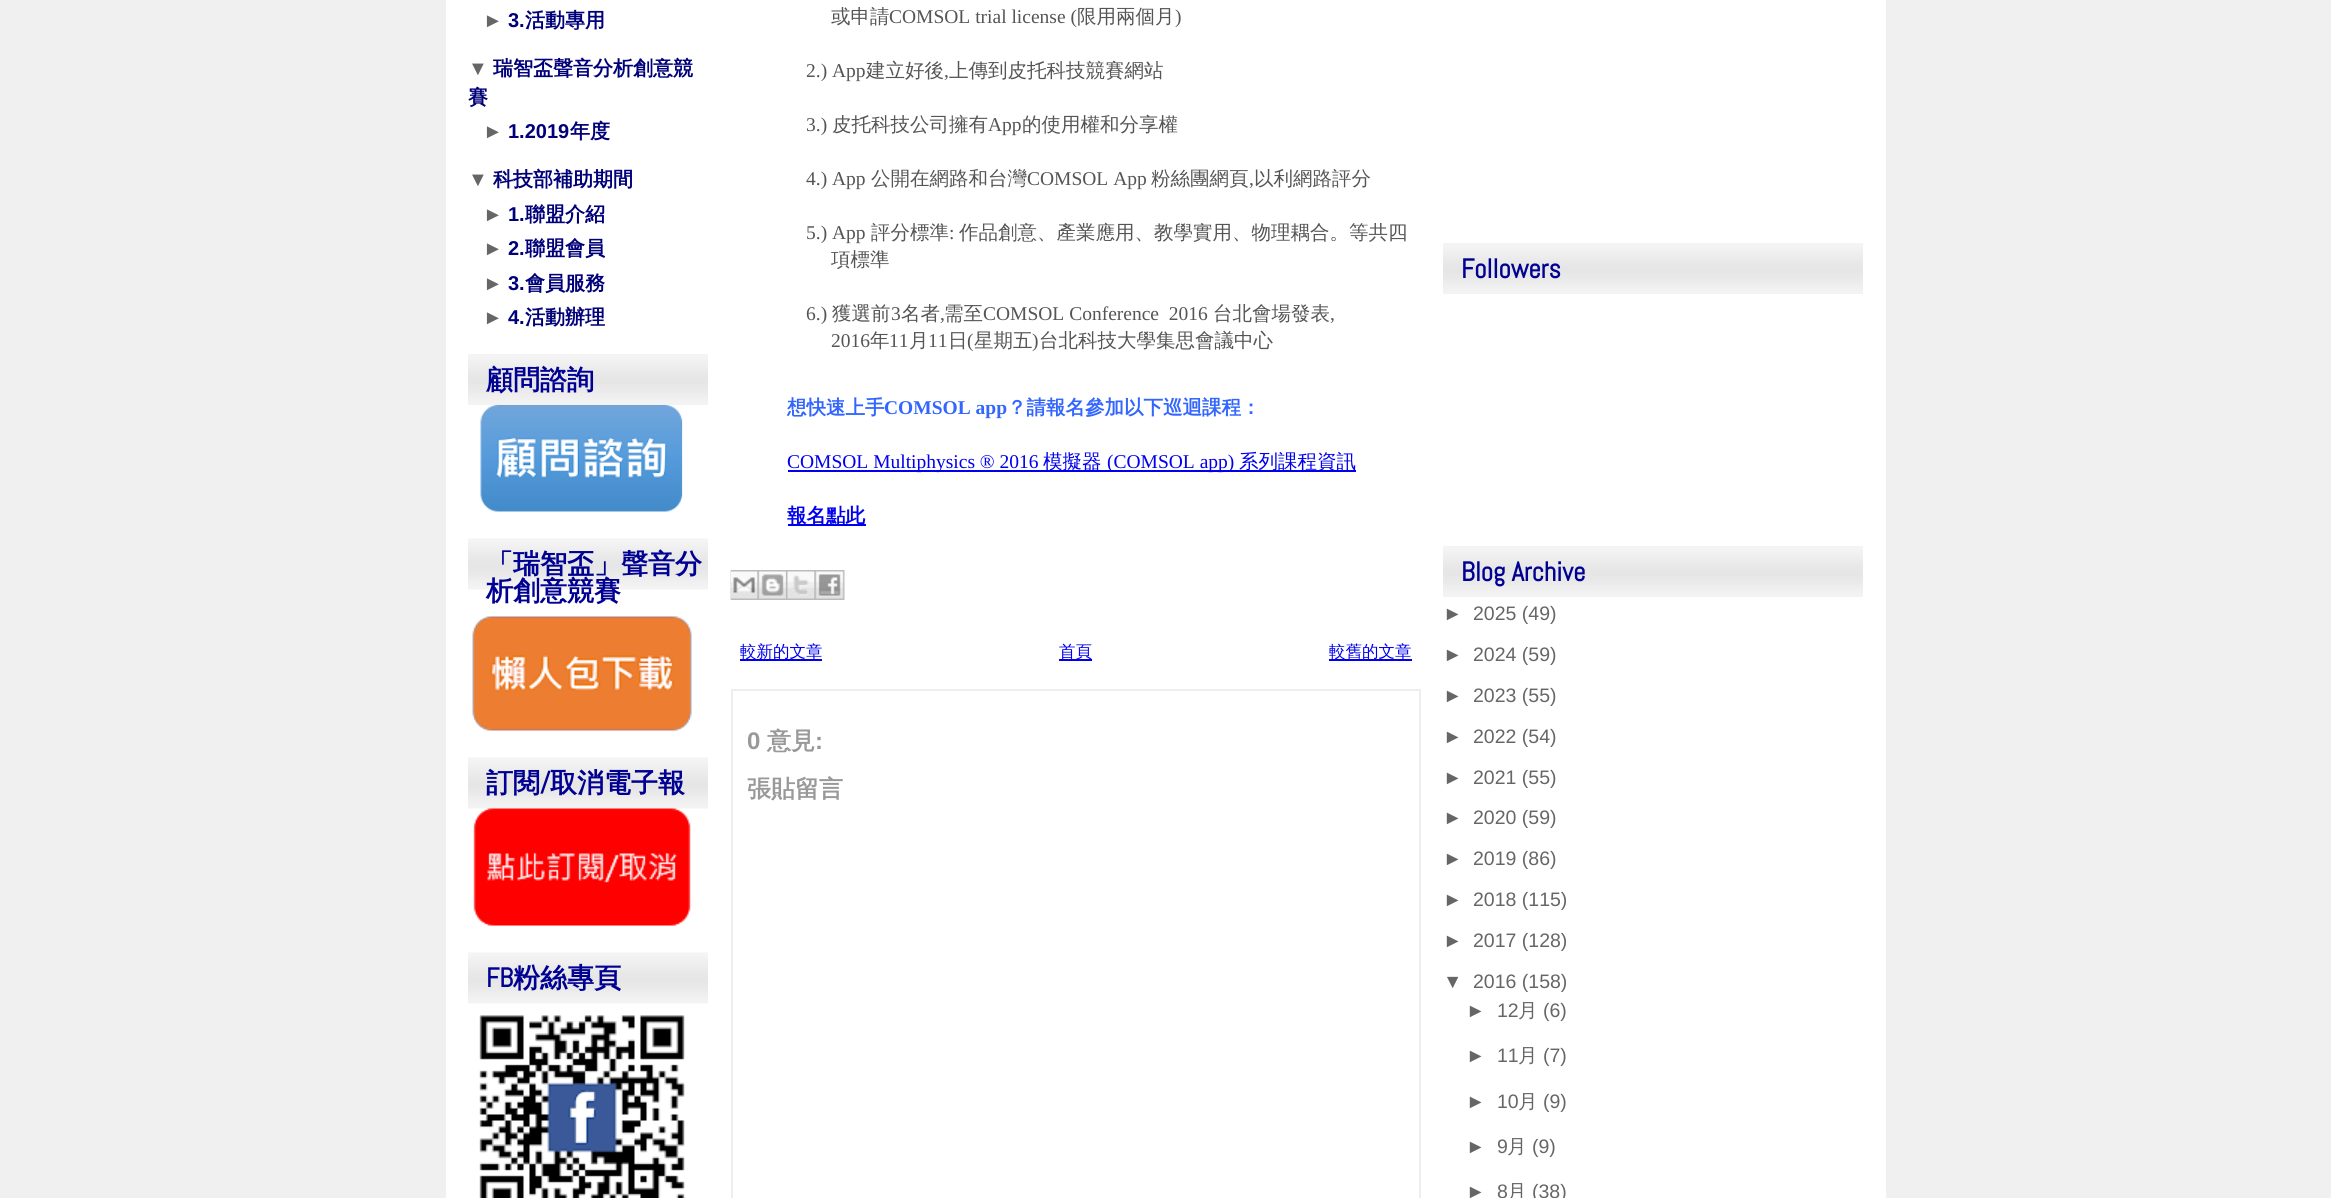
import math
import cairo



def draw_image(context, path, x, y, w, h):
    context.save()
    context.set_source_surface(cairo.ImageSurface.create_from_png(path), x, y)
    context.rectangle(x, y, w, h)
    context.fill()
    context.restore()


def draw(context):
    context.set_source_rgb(240 / 255, 240 / 255, 240 / 255)
    context.paint()
    context.set_source_rgb(1, 1, 1)
    context.rectangle(446, 0, 1440, 1198)
    context.fill()
    draw_image(context, "images/1.png", 468, 354, 240, 51)
    draw_image(context, "images/2.png", 480, 405, 203, 107)
    draw_image(context, "images/3.png", 468, 538, 240, 52)
    draw_image(context, "images/4.png", 472, 616, 220, 115)
    draw_image(context, "images/3.png", 468, 757, 240, 52)
    draw_image(context, "images/5.png", 473, 808, 218, 118)
    draw_image(context, "images/3.png", 468, 952, 240, 52)
    draw_image(context, "images/6.png", 479, 1015, 206, 183)
    context.set_source_rgb(0, 0, 238 / 255)
    context.rectangle(788, 470, 568, 2)
    context.fill()
    context.rectangle(788, 524, 78, 2)
    context.fill()
    draw_image(context, "images/7.png", 730, 570, 28, 30)
    draw_image(context, "images/8.png", 757, 570, 29, 30)
    draw_image(context, "images/9.png", 786, 570, 29, 30)
    draw_image(context, "images/10.png", 814, 570, 31, 30)
    context.rectangle(740, 659, 82, 2)
    context.fill()
    context.rectangle(1059, 659, 33, 2)
    context.fill()
    context.rectangle(1329, 659, 83, 2)
    context.fill()
    context.rectangle(732, 690, 688, 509)
    context.set_source_rgb(238 / 255, 238 / 255, 238 / 255)
    context.stroke()
    draw_image(context, "images/11.png", 1443, 243, 420, 51)
    draw_image(context, "images/11.png", 1443, 546, 420, 51)
    context.select_font_face("Liberation Sans")
    context.set_font_size(20)
    context.set_source_rgb(102 / 255, 102 / 255, 102 / 255)
    context.move_to(483, 27)
    context.show_text("►")
    context.select_font_face("Liberation Sans", cairo.FontSlant.NORMAL, cairo.FontWeight.BOLD)
    context.set_source_rgb(0, 0, 121 / 255)
    context.move_to(508, 27)
    context.show_text("3.")
    context.select_font_face("WenQuanYi Zen Hei", cairo.FontSlant.NORMAL, cairo.FontWeight.BOLD)
    context.move_to(525, 27)
    context.show_text("活動專用")
    context.select_font_face("Liberation Sans")
    context.set_source_rgb(102 / 255, 102 / 255, 102 / 255)
    context.move_to(468, 75)
    context.show_text("▼")
    context.select_font_face("WenQuanYi Zen Hei", cairo.FontSlant.NORMAL, cairo.FontWeight.BOLD)
    context.set_source_rgb(0, 0, 121 / 255)
    context.move_to(493, 75)
    context.show_text("瑞智盃聲音分析創意競")
    context.move_to(468, 104)
    context.show_text("賽")
    context.select_font_face("Liberation Sans")
    context.set_source_rgb(102 / 255, 102 / 255, 102 / 255)
    context.move_to(483, 138)
    context.show_text("►")
    context.select_font_face("Liberation Sans", cairo.FontSlant.NORMAL, cairo.FontWeight.BOLD)
    context.set_source_rgb(0, 0, 121 / 255)
    context.move_to(508, 138)
    context.show_text("1.2019")
    context.select_font_face("WenQuanYi Zen Hei", cairo.FontSlant.NORMAL, cairo.FontWeight.BOLD)
    context.move_to(570, 138)
    context.show_text("年度")
    context.select_font_face("Liberation Sans")
    context.set_source_rgb(102 / 255, 102 / 255, 102 / 255)
    context.move_to(468, 186)
    context.show_text("▼")
    context.select_font_face("WenQuanYi Zen Hei", cairo.FontSlant.NORMAL, cairo.FontWeight.BOLD)
    context.set_source_rgb(0, 0, 121 / 255)
    context.move_to(493, 186)
    context.show_text("科技部補助期間")
    context.select_font_face("Liberation Sans")
    context.set_source_rgb(102 / 255, 102 / 255, 102 / 255)
    context.move_to(483, 221)
    context.show_text("►")
    context.select_font_face("Liberation Sans", cairo.FontSlant.NORMAL, cairo.FontWeight.BOLD)
    context.set_source_rgb(0, 0, 121 / 255)
    context.move_to(508, 221)
    context.show_text("1.")
    context.select_font_face("WenQuanYi Zen Hei", cairo.FontSlant.NORMAL, cairo.FontWeight.BOLD)
    context.move_to(525, 221)
    context.show_text("聯盟介紹")
    context.select_font_face("Liberation Sans")
    context.set_source_rgb(102 / 255, 102 / 255, 102 / 255)
    context.move_to(483, 255)
    context.show_text("►")
    context.select_font_face("Liberation Sans", cairo.FontSlant.NORMAL, cairo.FontWeight.BOLD)
    context.set_source_rgb(0, 0, 121 / 255)
    context.move_to(508, 255)
    context.show_text("2.")
    context.select_font_face("WenQuanYi Zen Hei", cairo.FontSlant.NORMAL, cairo.FontWeight.BOLD)
    context.move_to(525, 255)
    context.show_text("聯盟會員")
    context.select_font_face("Liberation Sans")
    context.set_source_rgb(102 / 255, 102 / 255, 102 / 255)
    context.move_to(483, 290)
    context.show_text("►")
    context.select_font_face("Liberation Sans", cairo.FontSlant.NORMAL, cairo.FontWeight.BOLD)
    context.set_source_rgb(0, 0, 121 / 255)
    context.move_to(508, 290)
    context.show_text("3.")
    context.select_font_face("WenQuanYi Zen Hei", cairo.FontSlant.NORMAL, cairo.FontWeight.BOLD)
    context.move_to(525, 290)
    context.show_text("會員服務")
    context.select_font_face("Liberation Sans")
    context.set_source_rgb(102 / 255, 102 / 255, 102 / 255)
    context.move_to(483, 324)
    context.show_text("►")
    context.select_font_face("Liberation Sans", cairo.FontSlant.NORMAL, cairo.FontWeight.BOLD)
    context.set_source_rgb(0, 0, 121 / 255)
    context.move_to(508, 324)
    context.show_text("4.")
    context.select_font_face("WenQuanYi Zen Hei", cairo.FontSlant.NORMAL, cairo.FontWeight.BOLD)
    context.move_to(525, 324)
    context.show_text("活動辦理")
    context.set_font_size(27)
    context.set_source_rgb(0, 0, 147 / 255)
    context.move_to(486, 389)
    context.show_text("顧問諮詢")
    context.move_to(486, 573)
    context.show_text("「瑞智盃」聲音分")
    context.move_to(486, 600)
    context.show_text("析創意競賽")
    context.move_to(486, 792)
    context.show_text("訂閱")
    context.select_font_face("Abel", cairo.FontSlant.NORMAL, cairo.FontWeight.BOLD)
    context.move_to(540, 792)
    context.show_text("/")
    context.select_font_face("WenQuanYi Zen Hei", cairo.FontSlant.NORMAL, cairo.FontWeight.BOLD)
    context.move_to(550, 792)
    context.show_text("取消電子報")
    context.select_font_face("Abel", cairo.FontSlant.NORMAL, cairo.FontWeight.BOLD)
    context.move_to(486, 987)
    context.show_text("FB")
    context.select_font_face("WenQuanYi Zen Hei", cairo.FontSlant.NORMAL, cairo.FontWeight.BOLD)
    context.move_to(513, 987)
    context.show_text("粉絲專頁")
    context.select_font_face("WenQuanYi Zen Hei Medium")
    context.set_font_size(19.5)
    context.set_source_rgb(85 / 255, 85 / 255, 85 / 255)
    context.move_to(831, 23)
    context.show_text("或申請")
    context.select_font_face("Liberation Serif")
    context.move_to(889, 23)
    context.show_text("COMSOL trial license (")
    context.select_font_face("WenQuanYi Zen Hei Medium")
    context.move_to(1077, 23)
    context.show_text("限用兩個月")
    context.select_font_face("Liberation Serif")
    context.move_to(1175, 23)
    context.show_text(")")
    context.move_to(806, 77)
    context.show_text("2.) App")
    context.select_font_face("WenQuanYi Zen Hei Medium")
    context.move_to(866, 77)
    context.show_text("建立好後")
    context.select_font_face("Liberation Serif")
    context.move_to(944, 77)
    context.show_text(",")
    context.select_font_face("WenQuanYi Zen Hei Medium")
    context.move_to(949, 77)
    context.show_text("上傳到皮托科技競賽網站")
    context.select_font_face("Liberation Serif")
    context.move_to(806, 131)
    context.show_text("3.)")
    context.select_font_face("WenQuanYi Zen Hei Medium")
    context.move_to(832, 131)
    context.show_text("皮托科技公司擁有")
    context.select_font_face("Liberation Serif")
    context.move_to(988, 131)
    context.show_text("App")
    context.select_font_face("WenQuanYi Zen Hei Medium")
    context.move_to(1022, 131)
    context.show_text("的使用權和分享權")
    context.select_font_face("Liberation Serif")
    context.move_to(806, 185)
    context.show_text("4.) App")
    context.select_font_face("WenQuanYi Zen Hei Medium")
    context.move_to(871, 185)
    context.show_text("公開在網路和台灣")
    context.select_font_face("Liberation Serif")
    context.move_to(1027, 185)
    context.show_text("COMSOL App")
    context.select_font_face("WenQuanYi Zen Hei Medium")
    context.move_to(1151, 185)
    context.show_text("粉絲團網頁")
    context.select_font_face("Liberation Serif")
    context.move_to(1249, 185)
    context.show_text(",")
    context.select_font_face("WenQuanYi Zen Hei Medium")
    context.move_to(1254, 185)
    context.show_text("以利網路評分")
    context.select_font_face("Liberation Serif")
    context.move_to(806, 239)
    context.show_text("5.) App")
    context.select_font_face("WenQuanYi Zen Hei Medium")
    context.move_to(871, 239)
    context.show_text("評分標準")
    context.select_font_face("Liberation Serif")
    context.move_to(949, 239)
    context.show_text(":")
    context.select_font_face("WenQuanYi Zen Hei Medium")
    context.move_to(959, 239)
    context.show_text("作品創意、產業應用、教學實用、物理耦合。等共四")
    context.move_to(831, 266)
    context.show_text("項標準")
    context.select_font_face("Liberation Serif")
    context.move_to(806, 320)
    context.show_text("6.)")
    context.select_font_face("WenQuanYi Zen Hei Medium")
    context.move_to(832, 320)
    context.show_text("獲選前")
    context.select_font_face("Liberation Serif")
    context.move_to(891, 320)
    context.show_text("3")
    context.select_font_face("WenQuanYi Zen Hei Medium")
    context.move_to(901, 320)
    context.show_text("名者")
    context.select_font_face("Liberation Serif")
    context.move_to(940, 320)
    context.show_text(",")
    context.select_font_face("WenQuanYi Zen Hei Medium")
    context.move_to(944, 320)
    context.show_text("需至")
    context.select_font_face("Liberation Serif")
    context.move_to(983, 320)
    context.show_text("COMSOL Conference  2016")
    context.select_font_face("WenQuanYi Zen Hei Medium")
    context.move_to(1213, 320)
    context.show_text("台北會場發表")
    context.select_font_face("Liberation Serif")
    context.move_to(1330, 320)
    context.show_text(",")
    context.move_to(831, 347)
    context.show_text("2016")
    context.select_font_face("WenQuanYi Zen Hei Medium")
    context.move_to(870, 347)
    context.show_text("年")
    context.select_font_face("Liberation Serif")
    context.move_to(889, 347)
    context.show_text("11")
    context.select_font_face("WenQuanYi Zen Hei Medium")
    context.move_to(909, 347)
    context.show_text("月")
    context.select_font_face("Liberation Serif")
    context.move_to(928, 347)
    context.show_text("11")
    context.select_font_face("WenQuanYi Zen Hei Medium")
    context.move_to(948, 347)
    context.show_text("日")
    context.select_font_face("Liberation Serif")
    context.move_to(967, 347)
    context.show_text("(")
    context.select_font_face("WenQuanYi Zen Hei Medium")
    context.move_to(974, 347)
    context.show_text("星期五")
    context.select_font_face("Liberation Serif")
    context.move_to(1032, 347)
    context.show_text(")")
    context.select_font_face("WenQuanYi Zen Hei Medium")
    context.move_to(1039, 347)
    context.show_text("台北科技大學集思會議中心")
    context.select_font_face("WenQuanYi Zen Hei", cairo.FontSlant.NORMAL, cairo.FontWeight.BOLD)
    context.set_source_rgb(51 / 255, 102 / 255, 1)
    context.move_to(787, 414)
    context.show_text("想快速上手")
    context.select_font_face("Liberation Serif", cairo.FontSlant.NORMAL, cairo.FontWeight.BOLD)
    context.move_to(884, 414)
    context.show_text("COMSOL app")
    context.select_font_face("WenQuanYi Zen Hei", cairo.FontSlant.NORMAL, cairo.FontWeight.BOLD)
    context.move_to(1007, 414)
    context.show_text("？請報名參加以下巡迴課程：")
    context.select_font_face("Liberation Serif")
    context.set_source_rgb(0, 0, 238 / 255)
    context.move_to(787, 468)
    context.show_text("COMSOL Multiphysics ® 2016")
    context.select_font_face("WenQuanYi Zen Hei Medium")
    context.move_to(1043, 468)
    context.show_text("模擬器")
    context.select_font_face("Liberation Serif")
    context.move_to(1107, 468)
    context.show_text("(COMSOL app)")
    context.select_font_face("WenQuanYi Zen Hei Medium")
    context.move_to(1239, 468)
    context.show_text("系列課程資訊")
    context.select_font_face("WenQuanYi Zen Hei", cairo.FontSlant.NORMAL, cairo.FontWeight.BOLD)
    context.move_to(787, 522)
    context.show_text("報名點此")
    context.select_font_face("WenQuanYi Zen Hei Medium")
    context.set_font_size(16.5)
    context.move_to(740, 657)
    context.show_text("較新的文章")
    context.move_to(1059, 657)
    context.show_text("首頁")
    context.move_to(1329, 657)
    context.show_text("較舊的文章")
    context.select_font_face("Liberation Sans", cairo.FontSlant.NORMAL, cairo.FontWeight.BOLD)
    context.set_font_size(24)
    context.set_source_rgb(153 / 255, 153 / 255, 153 / 255)
    context.move_to(747, 749)
    context.show_text("0")
    context.select_font_face("WenQuanYi Zen Hei", cairo.FontSlant.NORMAL, cairo.FontWeight.BOLD)
    context.move_to(767, 749)
    context.show_text("意見")
    context.select_font_face("Liberation Sans", cairo.FontSlant.NORMAL, cairo.FontWeight.BOLD)
    context.move_to(815, 749)
    context.show_text(":")
    context.select_font_face("WenQuanYi Zen Hei", cairo.FontSlant.NORMAL, cairo.FontWeight.BOLD)
    context.move_to(747, 797)
    context.show_text("張貼留言")
    context.select_font_face("Abel", cairo.FontSlant.NORMAL, cairo.FontWeight.BOLD)
    context.set_font_size(27)
    context.set_source_rgb(0, 0, 147 / 255)
    context.move_to(1461, 278)
    context.show_text("Followers")
    context.move_to(1461, 581)
    context.show_text("Blog Archive")
    context.select_font_face("Liberation Sans")
    context.set_font_size(19.5)
    context.set_source_rgb(102 / 255, 102 / 255, 102 / 255)
    context.move_to(1443, 620)
    context.show_text("►")
    context.move_to(1473, 620)
    context.show_text("2025 (49)")
    context.move_to(1443, 661)
    context.show_text("►")
    context.move_to(1473, 661)
    context.show_text("2024 (59)")
    context.move_to(1443, 702)
    context.show_text("►")
    context.move_to(1473, 702)
    context.show_text("2023 (55)")
    context.move_to(1443, 743)
    context.show_text("►")
    context.move_to(1473, 743)
    context.show_text("2022 (54)")
    context.move_to(1443, 784)
    context.show_text("►")
    context.move_to(1473, 784)
    context.show_text("2021 (55)")
    context.move_to(1443, 824)
    context.show_text("►")
    context.move_to(1473, 824)
    context.show_text("2020 (59)")
    context.move_to(1443, 865)
    context.show_text("►")
    context.move_to(1473, 865)
    context.show_text("2019 (86)")
    context.move_to(1443, 906)
    context.show_text("►")
    context.move_to(1473, 906)
    context.show_text("2018 (115)")
    context.move_to(1443, 947)
    context.show_text("►")
    context.move_to(1473, 947)
    context.show_text("2017 (128)")
    context.move_to(1443, 988)
    context.show_text("▼")
    context.move_to(1473, 988)
    context.show_text("2016 (158)")
    context.move_to(1466, 1017)
    context.show_text("►")
    context.move_to(1497, 1017)
    context.show_text("12")
    context.select_font_face("WenQuanYi Zen Hei Medium")
    context.move_to(1518, 1017)
    context.show_text("月")
    context.select_font_face("Liberation Sans")
    context.move_to(1543, 1017)
    context.show_text("(6)")
    context.move_to(1466, 1062)
    context.show_text("►")
    context.move_to(1497, 1062)
    context.show_text("11")
    context.select_font_face("WenQuanYi Zen Hei Medium")
    context.move_to(1518, 1062)
    context.show_text("月")
    context.select_font_face("Liberation Sans")
    context.move_to(1543, 1062)
    context.show_text("(7)")
    context.move_to(1466, 1108)
    context.show_text("►")
    context.move_to(1497, 1108)
    context.show_text("10")
    context.select_font_face("WenQuanYi Zen Hei Medium")
    context.move_to(1518, 1108)
    context.show_text("月")
    context.select_font_face("Liberation Sans")
    context.move_to(1543, 1108)
    context.show_text("(9)")
    context.move_to(1466, 1153)
    context.show_text("►")
    context.move_to(1497, 1153)
    context.show_text("9")
    context.select_font_face("WenQuanYi Zen Hei Medium")
    context.move_to(1507, 1153)
    context.show_text("月")
    context.select_font_face("Liberation Sans")
    context.move_to(1532, 1153)
    context.show_text("(9)")
    context.move_to(1466, 1198)
    context.show_text("►")
    context.move_to(1497, 1198)
    context.show_text("8")
    context.select_font_face("WenQuanYi Zen Hei Medium")
    context.move_to(1507, 1198)
    context.show_text("月")
    context.select_font_face("Liberation Sans")
    context.move_to(1532, 1198)
    context.show_text("(38)")


surface = cairo.ImageSurface(cairo.Format.RGB24, 2331, 1198)
context = cairo.Context(surface)
options = cairo.FontOptions()
options.set_hint_metrics(cairo.HintMetrics.OFF)
options.set_hint_style(cairo.HintStyle.NONE)
context.set_font_options(options)
context.set_miter_limit(4)
draw(context)
surface.write_to_png("out.png")
